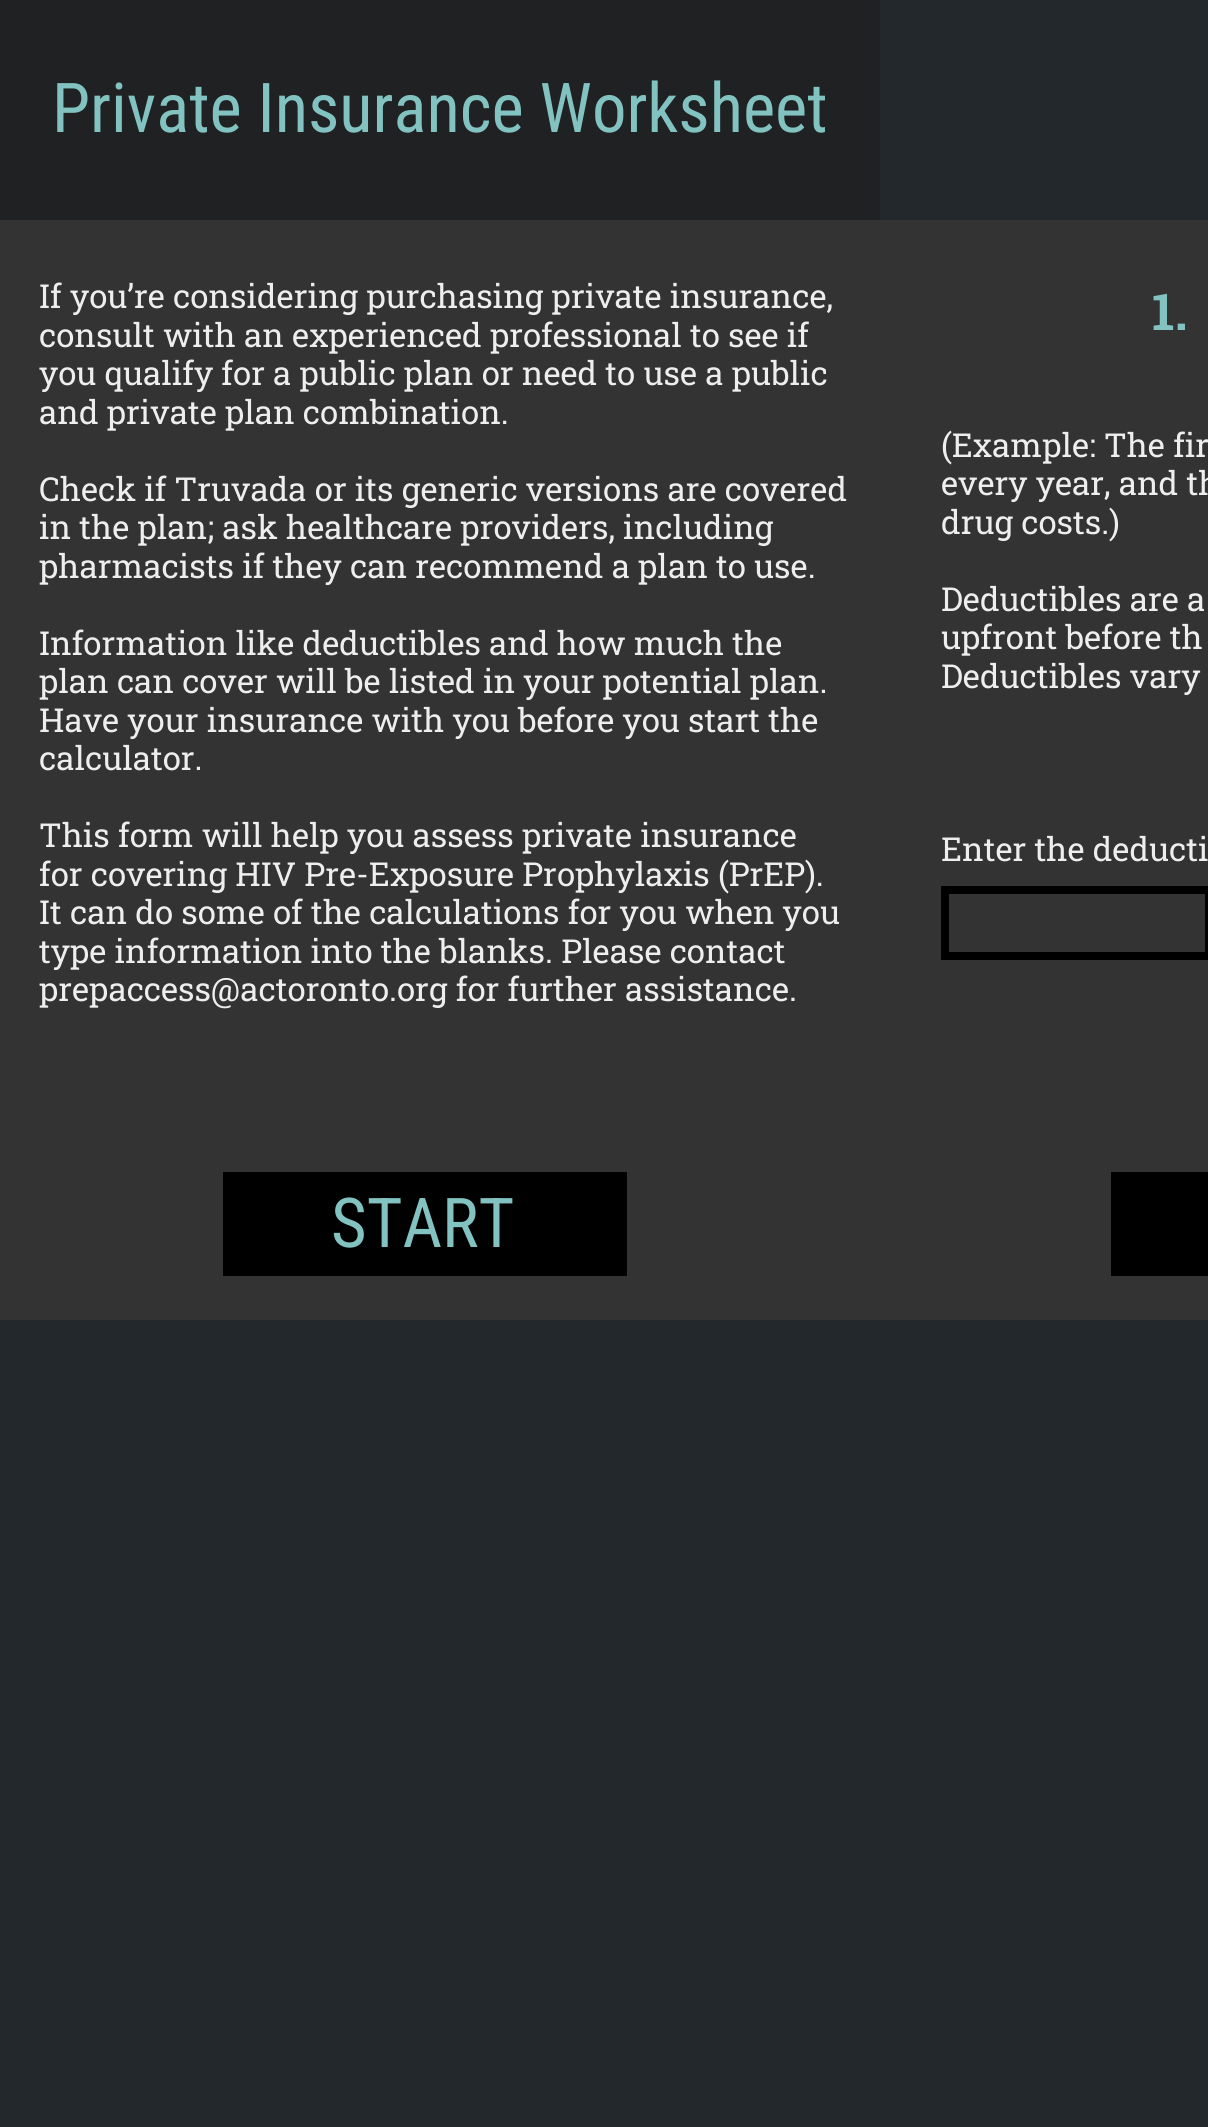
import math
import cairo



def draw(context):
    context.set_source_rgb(35 / 255, 40 / 255, 45 / 255)
    context.paint()
    context.set_source_rgb(32 / 255, 33 / 255, 35 / 255)
    context.rectangle(0, 0, 880, 220)
    context.fill()
    context.set_source_rgb(51 / 255, 51 / 255, 51 / 255)
    context.rectangle(0, 220, 1208, 1100)
    context.fill()
    context.set_source_rgb(0, 0, 0)
    context.rectangle(223, 1172, 404, 104)
    context.fill()
    context.rectangle(945, 890, 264, 66)
    context.set_line_width(8)
    context.stroke()
    context.rectangle(1111, 1172, 97, 104)
    context.fill()
    context.select_font_face("Roboto Condensed")
    context.set_font_size(68.75)
    context.set_source_rgb(130 / 255, 195 / 255, 193 / 255)
    context.move_to(52, 132)
    context.show_text("Private Insurance Worksheet")
    context.select_font_face("Roboto Slab")
    context.set_font_size(33)
    context.set_source_rgb(238 / 255, 238 / 255, 238 / 255)
    context.move_to(39, 308)
    context.show_text("If you’re considering purchasing private insurance,")
    context.move_to(39, 347)
    context.show_text("consult with an experienced professional to see if")
    context.move_to(39, 385)
    context.show_text("you qualify for a public plan or need to use a public")
    context.move_to(39, 424)
    context.show_text("and private plan combination.")
    context.move_to(39, 501)
    context.show_text("Check if Truvada or its generic versions are covered")
    context.move_to(39, 539)
    context.show_text("in the plan; ask healthcare providers, including")
    context.move_to(39, 578)
    context.show_text("pharmacists if they can recommend a plan to use.")
    context.move_to(39, 655)
    context.show_text("Information like deductibles and how much the")
    context.move_to(39, 693)
    context.show_text("plan can cover will be listed in your potential plan.")
    context.move_to(39, 732)
    context.show_text("Have your insurance with you before you start the")
    context.move_to(39, 770)
    context.show_text("calculator.")
    context.move_to(39, 847)
    context.show_text("This form will help you assess private insurance")
    context.move_to(39, 886)
    context.show_text("for covering HIV Pre-Exposure Prophylaxis (PrEP).")
    context.move_to(39, 924)
    context.show_text("It can do some of the calculations for you when you")
    context.move_to(39, 963)
    context.show_text("type information into the blanks. Please contact")
    context.move_to(39, 1001)
    context.show_text("prepaccess@actoronto.org for further assistance.")
    context.select_font_face("Roboto Condensed")
    context.set_font_size(68.75)
    context.set_source_rgb(130 / 255, 195 / 255, 193 / 255)
    context.move_to(331, 1247)
    context.show_text("START")
    context.select_font_face("Roboto Slab", cairo.FontSlant.NORMAL, cairo.FontWeight.BOLD)
    context.set_font_size(51)
    context.move_to(1152, 330)
    context.show_text("1.")
    context.select_font_face("Roboto Slab")
    context.set_font_size(33)
    context.set_source_rgb(238 / 255, 238 / 255, 238 / 255)
    context.move_to(941, 457)
    context.show_text("(Example: The fir")
    context.move_to(941, 495)
    context.show_text("every year, and th")
    context.move_to(941, 534)
    context.show_text("drug costs.)")
    context.move_to(941, 611)
    context.show_text("Deductibles are a")
    context.move_to(941, 649)
    context.show_text("upfront before th")
    context.move_to(941, 688)
    context.show_text("Deductibles vary")
    context.move_to(941, 861)
    context.show_text("Enter the deducti")


surface = cairo.ImageSurface(cairo.Format.RGB24, 1208, 2127)
context = cairo.Context(surface)
options = cairo.FontOptions()
options.set_hint_metrics(cairo.HintMetrics.OFF)
options.set_hint_style(cairo.HintStyle.NONE)
context.set_font_options(options)
context.set_miter_limit(4)
draw(context)
surface.write_to_png("out.png")
